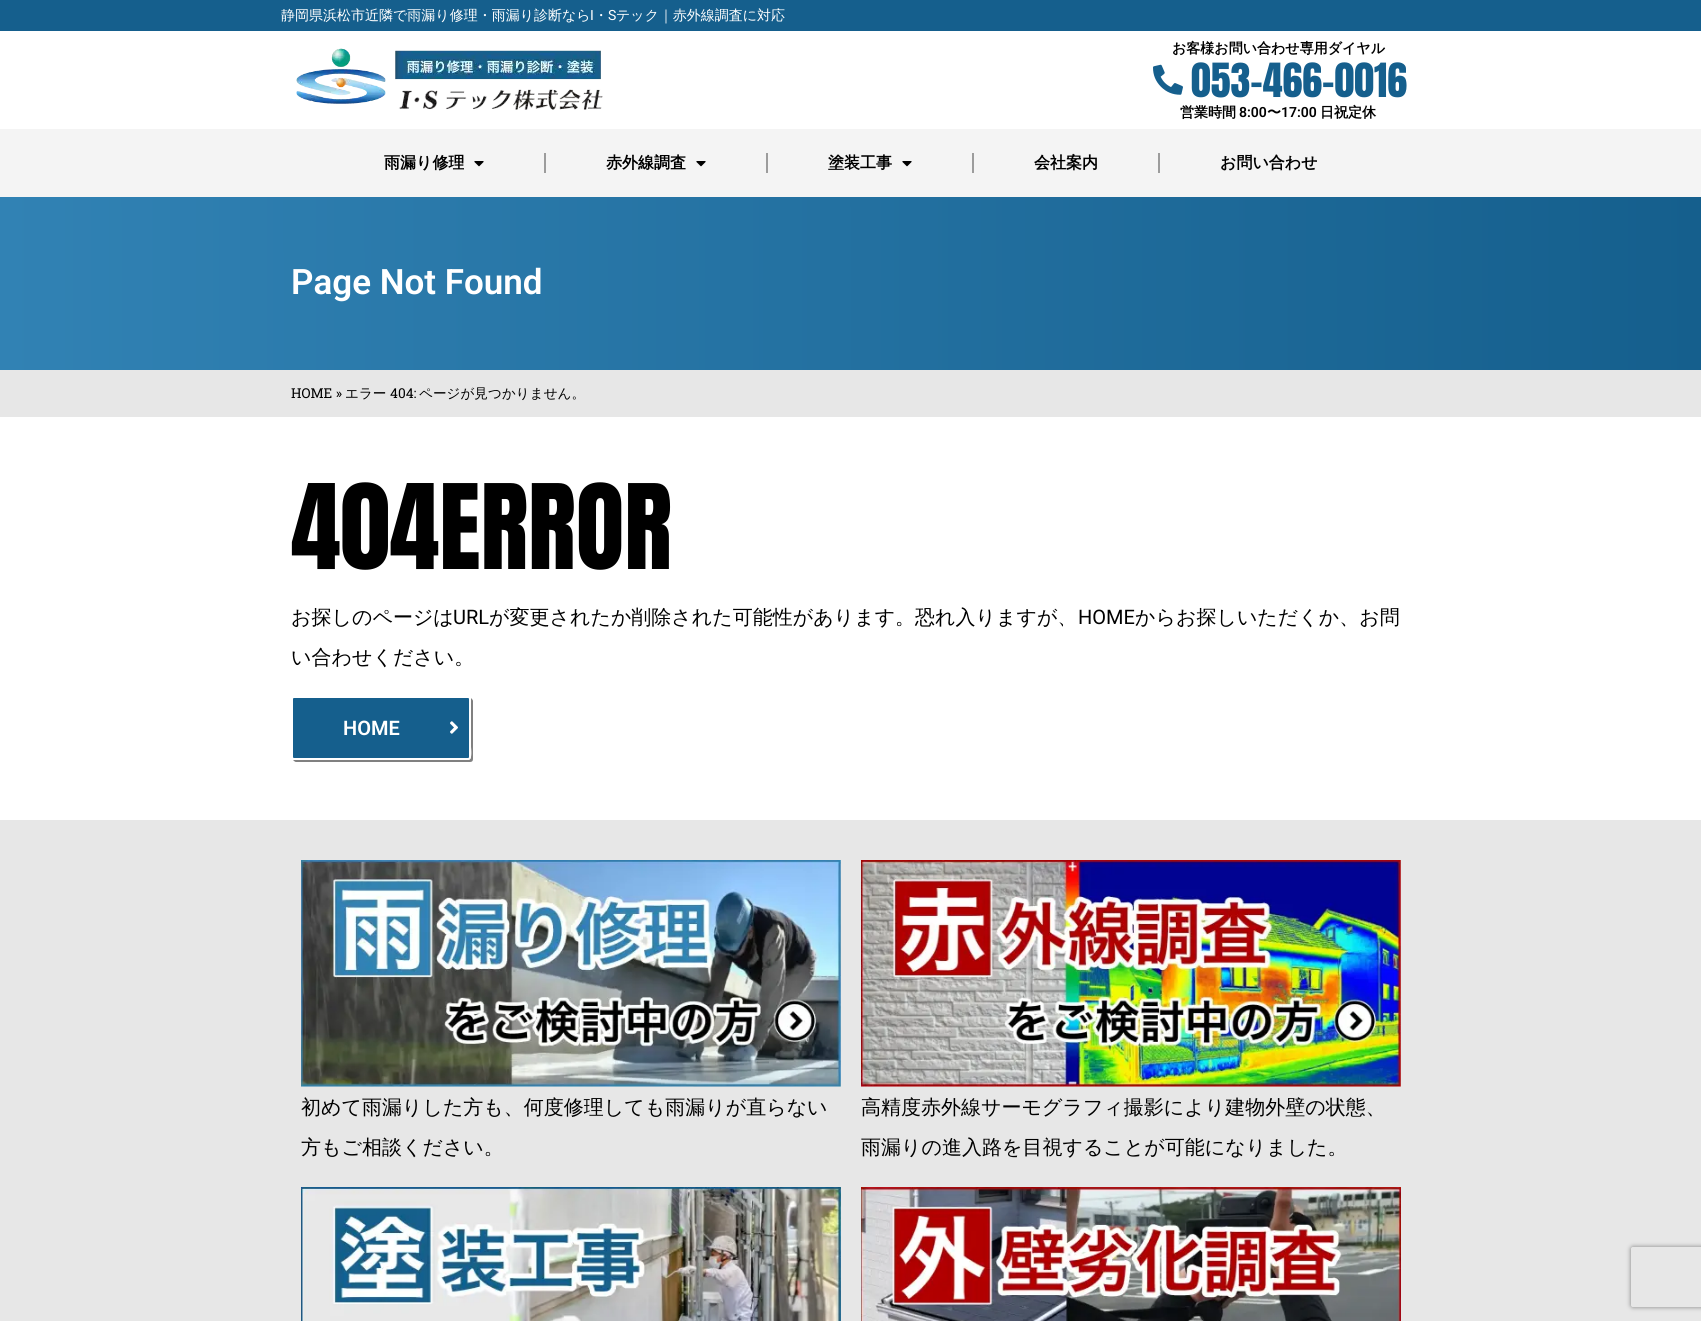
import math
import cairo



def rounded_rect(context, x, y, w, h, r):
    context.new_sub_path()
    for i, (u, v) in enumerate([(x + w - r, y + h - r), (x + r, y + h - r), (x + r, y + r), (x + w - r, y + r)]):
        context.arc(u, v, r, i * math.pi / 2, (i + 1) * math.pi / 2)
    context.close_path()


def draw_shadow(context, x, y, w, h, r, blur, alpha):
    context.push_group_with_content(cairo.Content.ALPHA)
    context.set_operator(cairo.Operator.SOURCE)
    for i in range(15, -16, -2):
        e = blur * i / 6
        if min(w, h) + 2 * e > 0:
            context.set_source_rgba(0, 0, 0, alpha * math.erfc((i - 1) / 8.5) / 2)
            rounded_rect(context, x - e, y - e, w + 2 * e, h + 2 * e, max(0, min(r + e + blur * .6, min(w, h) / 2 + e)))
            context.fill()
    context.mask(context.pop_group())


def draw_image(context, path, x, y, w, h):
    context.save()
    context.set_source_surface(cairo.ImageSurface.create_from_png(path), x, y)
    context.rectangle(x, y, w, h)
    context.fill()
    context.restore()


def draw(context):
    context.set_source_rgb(1, 1, 1)
    context.paint()
    context.set_source_rgb(21 / 255, 95 / 255, 141 / 255)
    context.rectangle(0, 0, 1701, 31)
    context.fill()
    draw_image(context, "images/1.png", 296, 48, 307, 62)
    draw_image(context, "images/2.png", 1153, 64, 30, 31)
    context.set_source_rgb(244 / 255, 244 / 255, 244 / 255)
    context.rectangle(0, 129, 1701, 68)
    context.fill()
    draw_image(context, "images/3.png", 474, 161, 10, 6)
    context.set_source_rgb(156 / 255, 156 / 255, 156 / 255)
    context.rectangle(544, 153, 2, 20)
    context.fill()
    draw_image(context, "images/3.png", 696, 161, 10, 6)
    context.rectangle(766, 153, 2, 20)
    context.fill()
    draw_image(context, "images/3.png", 902, 161, 10, 6)
    context.rectangle(972, 153, 2, 20)
    context.fill()
    context.rectangle(1158, 153, 2, 20)
    context.fill()
    gradient = cairo.LinearGradient(0, 284, 1701, 283)
    gradient.add_color_stop_rgba(0, 49 / 255, 130 / 255, 180 / 255, 1)
    gradient.add_color_stop_rgba(1, 21 / 255, 95 / 255, 141 / 255, 1)
    context.set_source(gradient)
    context.rectangle(0, 197, 1701, 173)
    context.fill()
    context.set_source_rgb(231 / 255, 231 / 255, 231 / 255)
    context.rectangle(0, 370, 1701, 47)
    context.fill()
    context.set_source_rgb(128 / 255, 128 / 255, 128 / 255)
    context.new_path()
    context.move_to(293, 760)
    context.curve_to(294, 761, 295, 762, 296, 762)
    context.line_to(470, 762)
    context.curve_to(472, 762, 473, 761, 473, 759)
    context.line_to(473, 701)
    context.curve_to(473, 700, 472, 699, 471, 698)
    context.line_to(471, 747)
    context.curve_to(471, 748, 473, 760, 468, 760)
    context.close_path()
    context.fill()
    context.set_source_rgb(21 / 255, 95 / 255, 141 / 255)
    rounded_rect(context, 292, 697, 178, 62, 2)
    context.fill_preserve()
    context.set_source_rgb(1, 1, 1)
    context.stroke()
    draw_image(context, "images/4.png", 450, 721, 8, 13)
    context.set_source_rgb(231 / 255, 231 / 255, 231 / 255)
    context.rectangle(0, 820, 1701, 501)
    context.fill()
    draw_image(context, "images/5.png", 301, 860, 540, 227)
    draw_image(context, "images/6.png", 861, 860, 540, 227)
    draw_image(context, "images/7.png", 301, 1187, 540, 134)
    draw_image(context, "images/8.png", 861, 1187, 540, 134)
    context.save()
    context.set_fill_rule(cairo.FillRule.EVEN_ODD)
    context.new_path()
    context.move_to(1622, 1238)
    context.line_to(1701, 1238)
    context.line_to(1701, 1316)
    context.line_to(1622, 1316)
    context.close_path()
    context.move_to(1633, 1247)
    context.line_to(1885, 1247)
    context.curve_to(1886, 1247, 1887, 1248, 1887, 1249)
    context.line_to(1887, 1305)
    context.curve_to(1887, 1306, 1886, 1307, 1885, 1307)
    context.line_to(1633, 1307)
    context.curve_to(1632, 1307, 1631, 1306, 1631, 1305)
    context.line_to(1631, 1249)
    context.curve_to(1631, 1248, 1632, 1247, 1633, 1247)
    context.close_path()
    context.clip()
    context.set_source_rgb(128 / 255, 128 / 255, 128 / 255)
    draw_shadow(context, 1631, 1247, 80, 60, 2, 2.5, 1)
    context.restore()
    context.select_font_face("WenQuanYi Zen Hei Medium")
    context.set_font_size(14)
    context.set_source_rgb(1, 1, 1)
    context.move_to(281, 20)
    context.show_text("静岡県浜松市近隣で雨漏り修理・雨漏り診断なら")
    context.select_font_face("Roboto")
    context.move_to(590, 20)
    context.show_text("I")
    context.select_font_face("WenQuanYi Zen Hei Medium")
    context.move_to(594, 20)
    context.show_text("・")
    context.select_font_face("Roboto")
    context.move_to(608, 20)
    context.show_text("S")
    context.select_font_face("WenQuanYi Zen Hei Medium")
    context.move_to(616, 20)
    context.show_text("テック｜赤外線調査に対応")
    context.select_font_face("WenQuanYi Zen Hei", cairo.FontSlant.NORMAL, cairo.FontWeight.BOLD)
    context.set_source_rgb(0, 0, 0)
    context.move_to(1172, 53)
    context.show_text("お客様お問い合わせ専用ダイヤル")
    context.select_font_face("Anton")
    context.set_font_size(40)
    context.set_source_rgb(21 / 255, 95 / 255, 141 / 255)
    context.move_to(1191, 97)
    context.show_text("053-466-0016")
    context.select_font_face("WenQuanYi Zen Hei", cairo.FontSlant.NORMAL, cairo.FontWeight.BOLD)
    context.set_font_size(14)
    context.set_source_rgb(0, 0, 0)
    context.move_to(1180, 117)
    context.show_text("営業時間")
    context.select_font_face("Roboto SemiBold")
    context.move_to(1239, 117)
    context.show_text("8:00")
    context.select_font_face("WenQuanYi Zen Hei", cairo.FontSlant.NORMAL, cairo.FontWeight.BOLD)
    context.move_to(1267, 117)
    context.show_text("〜")
    context.select_font_face("Roboto SemiBold")
    context.move_to(1281, 117)
    context.show_text("17:00")
    context.select_font_face("WenQuanYi Zen Hei", cairo.FontSlant.NORMAL, cairo.FontWeight.BOLD)
    context.move_to(1320, 117)
    context.show_text("日祝定休")
    context.set_font_size(16)
    context.move_to(384, 168)
    context.show_text("雨漏り修理")
    context.move_to(606, 168)
    context.show_text("赤外線調査")
    context.move_to(828, 168)
    context.show_text("塗装工事")
    context.move_to(1034, 168)
    context.show_text("会社案内")
    context.move_to(1220, 168)
    context.show_text("お問い合わせ")
    context.select_font_face("Roboto SemiBold")
    context.set_font_size(35)
    context.set_source_rgb(1, 1, 1)
    context.move_to(291, 294)
    context.show_text("Page Not Found")
    context.select_font_face("Roboto Slab")
    context.set_font_size(13.6)
    context.set_source_rgb(0, 0, 0)
    context.move_to(291, 398)
    context.show_text("HOME »")
    context.select_font_face("WenQuanYi Zen Hei Medium")
    context.move_to(345, 398)
    context.show_text("エラー")
    context.select_font_face("Roboto Slab")
    context.move_to(390, 398)
    context.show_text("404:")
    context.select_font_face("WenQuanYi Zen Hei Medium")
    context.move_to(419, 398)
    context.show_text("ページが見つかりません。")
    context.select_font_face("Anton")
    context.set_font_size(100)
    context.move_to(291, 569)
    context.show_text("404ERROR")
    context.select_font_face("WenQuanYi Zen Hei Medium")
    context.set_font_size(20)
    context.move_to(291, 624)
    context.show_text("お探しのページは")
    context.select_font_face("Roboto")
    context.move_to(453, 624)
    context.show_text("URL")
    context.select_font_face("WenQuanYi Zen Hei Medium")
    context.move_to(489, 624)
    context.show_text("が変更されたか削除された可能性があります。恐れ入りますが、")
    context.select_font_face("Roboto")
    context.move_to(1078, 624)
    context.show_text("HOME")
    context.select_font_face("WenQuanYi Zen Hei Medium")
    context.move_to(1135, 624)
    context.show_text("からお探しいただくか、お問")
    context.move_to(291, 664)
    context.show_text("い合わせください。")
    context.select_font_face("Roboto SemiBold")
    context.set_source_rgb(1, 1, 1)
    context.move_to(343, 735)
    context.show_text("HOME")
    context.select_font_face("WenQuanYi Zen Hei Medium")
    context.set_source_rgb(0, 0, 0)
    context.move_to(301, 1114)
    context.show_text("初めて雨漏りした方も、何度修理しても雨漏りが直らない")
    context.move_to(301, 1154)
    context.show_text("方もご相談ください。")
    context.move_to(861, 1114)
    context.show_text("高精度赤外線サーモグラフィ撮影により建物外壁の状態、")
    context.move_to(861, 1154)
    context.show_text("雨漏りの進入路を目視することが可能になりました。")


surface = cairo.ImageSurface(cairo.Format.RGB24, 1701, 1321)
context = cairo.Context(surface)
options = cairo.FontOptions()
options.set_hint_metrics(cairo.HintMetrics.OFF)
options.set_hint_style(cairo.HintStyle.NONE)
context.set_font_options(options)
context.set_miter_limit(4)
draw(context)
surface.write_to_png("out.png")
